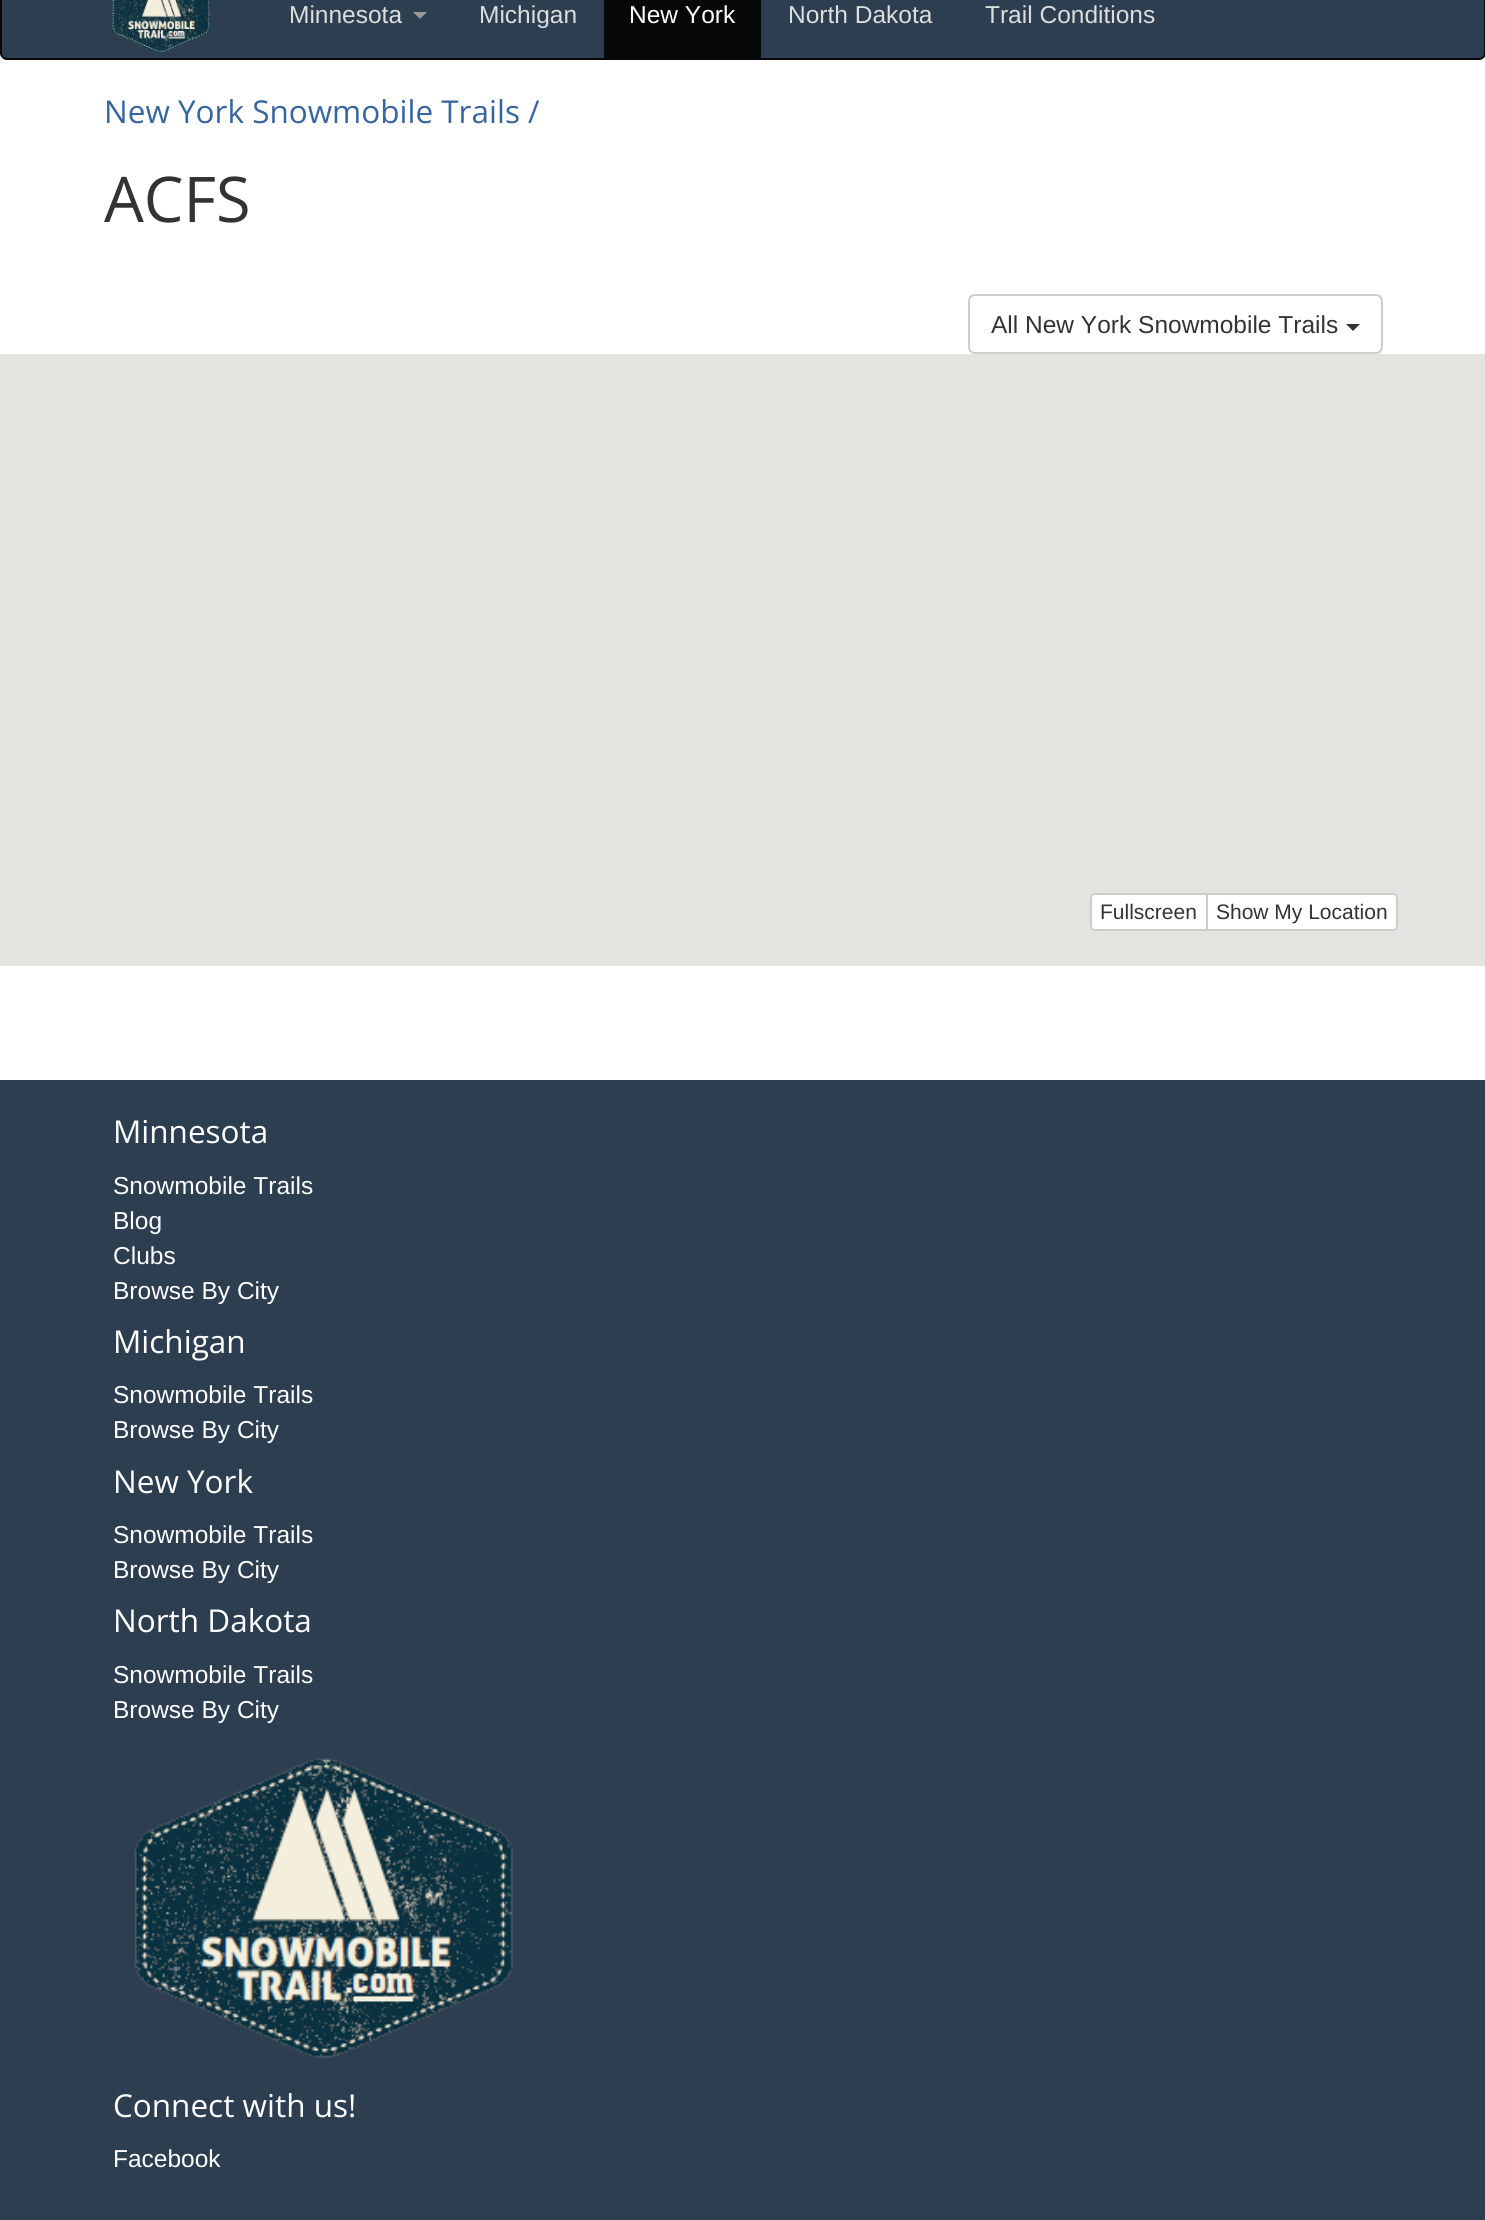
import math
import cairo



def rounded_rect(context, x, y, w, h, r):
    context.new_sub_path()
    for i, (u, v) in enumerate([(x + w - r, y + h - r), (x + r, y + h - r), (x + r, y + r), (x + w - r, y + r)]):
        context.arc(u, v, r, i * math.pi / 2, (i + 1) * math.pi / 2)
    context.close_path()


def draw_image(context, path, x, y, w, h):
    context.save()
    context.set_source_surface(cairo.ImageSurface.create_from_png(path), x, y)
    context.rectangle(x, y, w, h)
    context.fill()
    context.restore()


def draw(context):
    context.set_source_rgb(1, 1, 1)
    context.paint()
    context.set_source_rgb(44 / 255, 62 / 255, 80 / 255)
    rounded_rect(context, 1, -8, 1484, 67, 6)
    context.fill_preserve()
    context.set_source_rgb(8 / 255, 8 / 255, 8 / 255)
    context.stroke()
    draw_image(context, "images/1.png", 110, 0, 102, 54)
    context.set_source_rgb(153 / 255, 153 / 255, 153 / 255)
    context.new_path()
    context.move_to(413, 12)
    context.line_to(427, 12)
    context.line_to(420, 19)
    context.close_path()
    context.fill()
    context.set_source_rgb(8 / 255, 8 / 255, 8 / 255)
    context.rectangle(604, 0, 157, 58)
    context.fill()
    rounded_rect(context, 969, 295, 413, 58, 6)
    context.set_source_rgb(204 / 255, 204 / 255, 204 / 255)
    context.stroke()
    context.set_source_rgb(51 / 255, 51 / 255, 51 / 255)
    context.new_path()
    context.move_to(1346, 324)
    context.line_to(1360, 324)
    context.line_to(1353, 331)
    context.close_path()
    context.fill()
    context.set_source_rgb(229 / 255, 227 / 255, 223 / 255)
    context.rectangle(0, 354, 1485, 612)
    context.fill()
    context.set_source_rgb(1, 1, 1)
    context.new_path()
    context.move_to(1095, 894)
    context.line_to(1207, 894)
    context.line_to(1207, 930)
    context.line_to(1095, 930)
    context.curve_to(1093, 930, 1091, 928, 1091, 926)
    context.line_to(1091, 898)
    context.curve_to(1091, 896, 1093, 894, 1095, 894)
    context.close_path()
    context.fill_preserve()
    context.set_source_rgb(204 / 255, 204 / 255, 204 / 255)
    context.stroke()
    context.set_source_rgb(1, 1, 1)
    context.new_path()
    context.move_to(1207, 894)
    context.line_to(1393, 894)
    context.curve_to(1395, 894, 1397, 896, 1397, 898)
    context.line_to(1397, 926)
    context.curve_to(1397, 928, 1395, 930, 1393, 930)
    context.line_to(1207, 930)
    context.close_path()
    context.fill_preserve()
    context.set_source_rgb(204 / 255, 204 / 255, 204 / 255)
    context.stroke()
    context.set_source_rgb(44 / 255, 62 / 255, 80 / 255)
    context.rectangle(0, 1080, 1485, 1140)
    context.fill()
    draw_image(context, "images/2.png", 134, 1758, 380, 300)
    context.select_font_face("Liberation Sans")
    context.set_font_size(24.5)
    context.set_source_rgb(221 / 255, 221 / 255, 221 / 255)
    context.move_to(289, 23)
    context.show_text("Minnesota")
    context.move_to(479, 23)
    context.show_text("Michigan")
    context.set_source_rgb(1, 1, 1)
    context.move_to(629, 23)
    context.show_text("New York")
    context.set_source_rgb(221 / 255, 221 / 255, 221 / 255)
    context.move_to(788, 23)
    context.show_text("North Dakota")
    context.move_to(985, 23)
    context.show_text("Trail Conditions")
    context.select_font_face("Open Sans")
    context.set_font_size(31.5)
    context.set_source_rgb(55 / 255, 102 / 255, 159 / 255)
    context.move_to(104, 123)
    context.show_text("New York Snowmobile Trails /")
    context.set_font_size(63)
    context.set_source_rgb(51 / 255, 51 / 255, 51 / 255)
    context.move_to(104, 222)
    context.show_text("ACFS")
    context.select_font_face("Liberation Sans")
    context.set_font_size(24.5)
    context.move_to(991, 333)
    context.show_text("All New York Snowmobile Trails")
    context.set_font_size(21)
    context.move_to(1100, 919)
    context.show_text("Fullscreen")
    context.move_to(1216, 919)
    context.show_text("Show My Location")
    context.select_font_face("Open Sans")
    context.set_font_size(31.5)
    context.set_source_rgb(1, 1, 1)
    context.move_to(113, 1143)
    context.show_text("Minnesota")
    context.select_font_face("Liberation Sans")
    context.set_font_size(24.5)
    context.move_to(113, 1194)
    context.show_text("Snowmobile Trails")
    context.move_to(113, 1229)
    context.show_text("Blog")
    context.move_to(113, 1264)
    context.show_text("Clubs")
    context.move_to(113, 1299)
    context.show_text("Browse By City")
    context.select_font_face("Open Sans")
    context.set_font_size(31.5)
    context.move_to(113, 1353)
    context.show_text("Michigan")
    context.select_font_face("Liberation Sans")
    context.set_font_size(24.5)
    context.move_to(113, 1403)
    context.show_text("Snowmobile Trails")
    context.move_to(113, 1438)
    context.show_text("Browse By City")
    context.select_font_face("Open Sans")
    context.set_font_size(31.5)
    context.move_to(113, 1493)
    context.show_text("New York")
    context.select_font_face("Liberation Sans")
    context.set_font_size(24.5)
    context.move_to(113, 1543)
    context.show_text("Snowmobile Trails")
    context.move_to(113, 1578)
    context.show_text("Browse By City")
    context.select_font_face("Open Sans")
    context.set_font_size(31.5)
    context.move_to(113, 1632)
    context.show_text("North Dakota")
    context.select_font_face("Liberation Sans")
    context.set_font_size(24.5)
    context.move_to(113, 1683)
    context.show_text("Snowmobile Trails")
    context.move_to(113, 1718)
    context.show_text("Browse By City")
    context.select_font_face("Open Sans")
    context.set_font_size(31.5)
    context.move_to(113, 2117)
    context.show_text("Connect with us!")
    context.select_font_face("Liberation Sans")
    context.set_font_size(24.5)
    context.move_to(113, 2167)
    context.show_text("Facebook")


surface = cairo.ImageSurface(cairo.Format.RGB24, 1485, 2220)
context = cairo.Context(surface)
options = cairo.FontOptions()
options.set_hint_metrics(cairo.HintMetrics.OFF)
options.set_hint_style(cairo.HintStyle.NONE)
context.set_font_options(options)
context.set_miter_limit(4)
draw(context)
surface.write_to_png("out.png")
